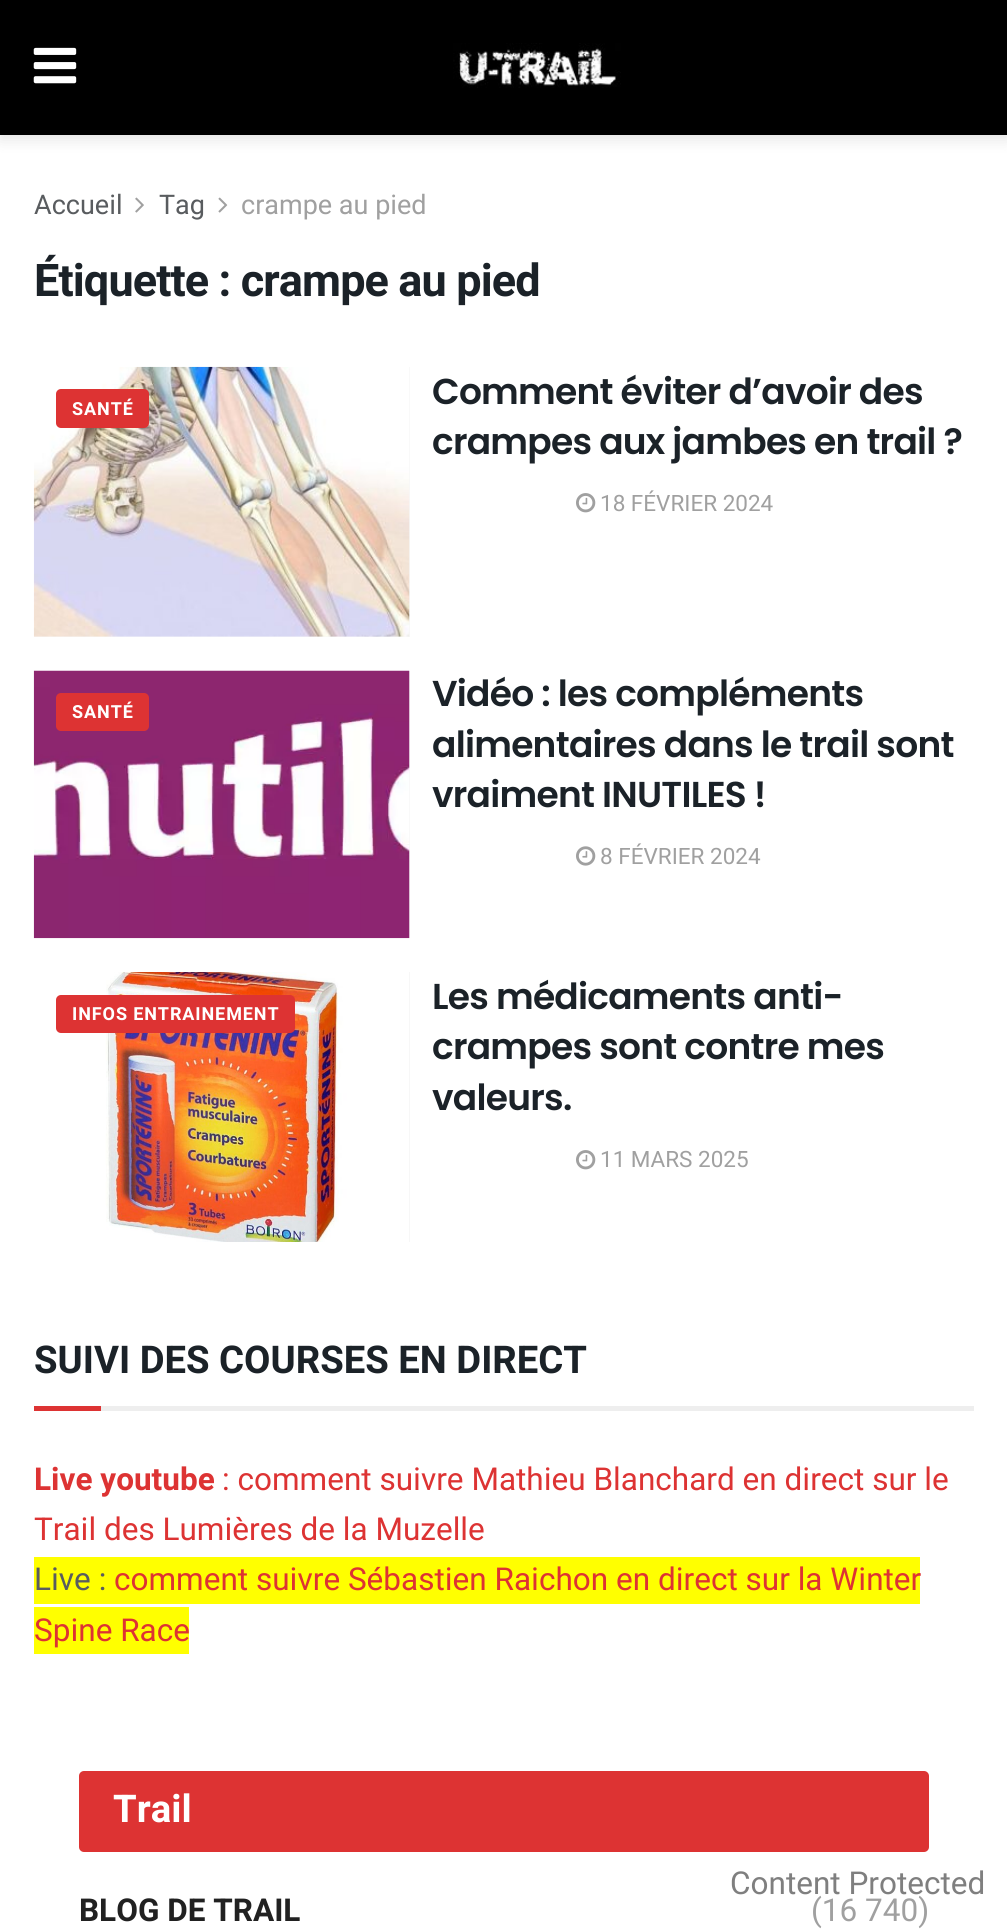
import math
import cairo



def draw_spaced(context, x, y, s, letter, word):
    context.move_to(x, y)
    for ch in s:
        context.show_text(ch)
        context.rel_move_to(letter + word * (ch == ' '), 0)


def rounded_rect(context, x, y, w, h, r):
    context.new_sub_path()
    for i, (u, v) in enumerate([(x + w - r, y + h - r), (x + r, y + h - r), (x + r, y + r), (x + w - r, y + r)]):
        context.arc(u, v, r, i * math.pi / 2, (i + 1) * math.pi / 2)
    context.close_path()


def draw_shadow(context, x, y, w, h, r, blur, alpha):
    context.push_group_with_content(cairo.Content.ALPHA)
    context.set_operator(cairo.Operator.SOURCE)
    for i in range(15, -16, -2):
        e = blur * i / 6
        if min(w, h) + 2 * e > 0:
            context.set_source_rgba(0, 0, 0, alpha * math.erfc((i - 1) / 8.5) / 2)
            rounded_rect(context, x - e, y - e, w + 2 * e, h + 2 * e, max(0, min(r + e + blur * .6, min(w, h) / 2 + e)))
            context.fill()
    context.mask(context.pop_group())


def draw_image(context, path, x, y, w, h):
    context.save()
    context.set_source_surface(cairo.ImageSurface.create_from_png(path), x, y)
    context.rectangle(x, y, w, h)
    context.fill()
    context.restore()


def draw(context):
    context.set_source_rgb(1, 1, 1)
    context.paint()
    context.set_source_rgb(0, 0, 0)
    draw_shadow(context, 0, 5, 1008, 135, 0, 7, 0.1)
    context.set_source_rgb(0, 0, 0)
    context.rectangle(0, 0, 1007, 135)
    context.fill()
    draw_image(context, "images/1.png", 33, 47, 44, 37)
    draw_image(context, "images/2.png", 453, 43, 168, 45)
    draw_image(context, "images/3.png", 135, 197, 9, 16)
    draw_image(context, "images/4.png", 218, 197, 10, 16)
    context.set_source_rgb(247 / 255, 247 / 255, 247 / 255)
    context.rectangle(34, 367, 376, 270)
    context.fill()
    draw_image(context, "images/5.png", 33, 366, 377, 271)
    context.set_source_rgb(221 / 255, 51 / 255, 51 / 255)
    rounded_rect(context, 56, 389, 93, 39, 5)
    context.fill()
    draw_image(context, "images/6.png", 576, 493, 20, 20)
    context.set_source_rgb(247 / 255, 247 / 255, 247 / 255)
    context.rectangle(409, 671, 1, 267)
    context.fill()
    draw_image(context, "images/7.png", 33, 670, 377, 269)
    context.set_source_rgb(221 / 255, 51 / 255, 51 / 255)
    rounded_rect(context, 56, 693, 93, 38, 5)
    context.fill()
    draw_image(context, "images/8.png", 576, 846, 20, 20)
    context.set_source_rgb(247 / 255, 247 / 255, 247 / 255)
    context.rectangle(409, 972, 1, 270)
    context.fill()
    draw_image(context, "images/9.png", 34, 972, 375, 270)
    context.set_source_rgb(221 / 255, 51 / 255, 51 / 255)
    rounded_rect(context, 56, 995, 239, 38, 5)
    context.fill()
    draw_image(context, "images/6.png", 576, 1150, 20, 20)
    context.set_source_rgb(238 / 255, 238 / 255, 238 / 255)
    context.rectangle(101, 1406, 873, 5)
    context.fill()
    context.set_source_rgb(221 / 255, 51 / 255, 51 / 255)
    context.rectangle(34, 1406, 67, 5)
    context.fill()
    context.set_source_rgb(1, 1, 0)
    context.rectangle(34, 1557, 886, 47)
    context.fill()
    context.rectangle(34, 1607, 155, 47)
    context.fill()
    context.set_source_rgb(221 / 255, 51 / 255, 51 / 255)
    rounded_rect(context, 79, 1771, 850, 81, 5)
    context.fill()
    context.select_font_face("Heebo")
    context.set_font_size(27)
    context.set_source_rgb(89 / 255, 92 / 255, 95 / 255)
    context.move_to(34, 214)
    context.show_text("Accueil")
    context.move_to(159, 214)
    context.show_text("Tag")
    context.set_source_rgb(160 / 255, 160 / 255, 160 / 255)
    context.move_to(241, 214)
    context.show_text("crampe au pied")
    context.select_font_face("Heebo", cairo.FontSlant.NORMAL, cairo.FontWeight.BOLD)
    context.set_font_size(45)
    context.set_source_rgb(27 / 255, 34 / 255, 40 / 255)
    draw_spaced(context, 34, 296, "Étiquette : crampe au pied", -0.9, 0)
    context.set_font_size(18)
    context.set_source_rgb(1, 1, 1)
    draw_spaced(context, 72, 415, "SANTÉ", 0.9, 0)
    context.select_font_face("Poppins SemiBold")
    context.set_font_size(36)
    context.set_source_rgb(27 / 255, 34 / 255, 40 / 255)
    draw_spaced(context, 432, 404, "Comment éviter d’avoir des", -0.75, 0)
    draw_spaced(context, 432, 454, "crampes aux jambes en trail ?", -0.75, 0)
    context.select_font_face("Heebo")
    context.set_font_size(22.5)
    context.set_source_rgb(160 / 255, 160 / 255, 160 / 255)
    context.move_to(600, 511)
    context.show_text("18 FÉVRIER 2024")
    context.select_font_face("Heebo", cairo.FontSlant.NORMAL, cairo.FontWeight.BOLD)
    context.set_font_size(18)
    context.set_source_rgb(1, 1, 1)
    draw_spaced(context, 72, 718, "SANTÉ", 0.9, 0)
    context.select_font_face("Poppins SemiBold")
    context.set_font_size(36)
    context.set_source_rgb(27 / 255, 34 / 255, 40 / 255)
    draw_spaced(context, 432, 706, "Vidéo : les compléments", -0.75, 0)
    draw_spaced(context, 432, 757, "alimentaires dans le trail sont", -0.75, 0)
    draw_spaced(context, 432, 807, "vraiment INUTILES !", -0.75, 0)
    context.select_font_face("Heebo")
    context.set_font_size(22.5)
    context.set_source_rgb(160 / 255, 160 / 255, 160 / 255)
    context.move_to(600, 864)
    context.show_text("8 FÉVRIER 2024")
    context.select_font_face("Heebo", cairo.FontSlant.NORMAL, cairo.FontWeight.BOLD)
    context.set_font_size(18)
    context.set_source_rgb(1, 1, 1)
    draw_spaced(context, 72, 1020, "INFOS ENTRAINEMENT", 0.9, 0)
    context.select_font_face("Poppins SemiBold")
    context.set_font_size(36)
    context.set_source_rgb(27 / 255, 34 / 255, 40 / 255)
    draw_spaced(context, 432, 1009, "Les médicaments anti-", -0.75, 0)
    draw_spaced(context, 432, 1059, "crampes sont contre mes", -0.75, 0)
    draw_spaced(context, 432, 1110, "valeurs.", -0.75, 0)
    context.select_font_face("Heebo")
    context.set_font_size(22.5)
    context.set_source_rgb(160 / 255, 160 / 255, 160 / 255)
    context.move_to(600, 1167)
    context.show_text("11 MARS 2025")
    context.select_font_face("Heebo", cairo.FontSlant.NORMAL, cairo.FontWeight.BOLD)
    context.set_font_size(38.25)
    context.set_source_rgb(27 / 255, 34 / 255, 40 / 255)
    context.move_to(34, 1373)
    context.show_text("SUIVI DES COURSES EN DIRECT")
    context.set_font_size(31.5)
    context.set_source_rgb(221 / 255, 51 / 255, 51 / 255)
    context.move_to(34, 1490)
    context.show_text("Live youtube")
    context.select_font_face("Heebo")
    context.move_to(222, 1490)
    context.show_text(": comment suivre Mathieu Blanchard en direct sur le")
    context.move_to(34, 1540)
    context.show_text("Trail des Lumières de la Muzelle")
    context.set_source_rgb(89 / 255, 92 / 255, 95 / 255)
    context.move_to(34, 1590)
    context.show_text("Live :")
    context.set_source_rgb(221 / 255, 51 / 255, 51 / 255)
    context.move_to(114, 1590)
    context.show_text("comment suivre Sébastien Raichon en direct sur la Winter")
    context.move_to(34, 1641)
    context.show_text("Spine Race")
    context.select_font_face("Heebo", cairo.FontSlant.NORMAL, cairo.FontWeight.BOLD)
    context.set_font_size(38.25)
    context.set_source_rgb(1, 1, 1)
    context.move_to(113, 1822)
    context.show_text("Trail")
    context.set_font_size(31.5)
    context.set_source_rgb(33 / 255, 33 / 255, 33 / 255)
    context.move_to(79, 1921)
    context.show_text("BLOG DE TRAIL")
    context.select_font_face("Heebo")
    context.set_source_rgb(160 / 255, 160 / 255, 160 / 255)
    context.move_to(811, 1921)
    context.show_text("(16 740)")
    context.set_source_rgb(127 / 255, 127 / 255, 127 / 255)
    context.move_to(730, 1894)
    context.show_text("Content Protected")


surface = cairo.ImageSurface(cairo.Format.RGB24, 1007, 1931)
context = cairo.Context(surface)
options = cairo.FontOptions()
options.set_hint_metrics(cairo.HintMetrics.OFF)
options.set_hint_style(cairo.HintStyle.NONE)
context.set_font_options(options)
context.set_miter_limit(4)
draw(context)
surface.write_to_png("out.png")
